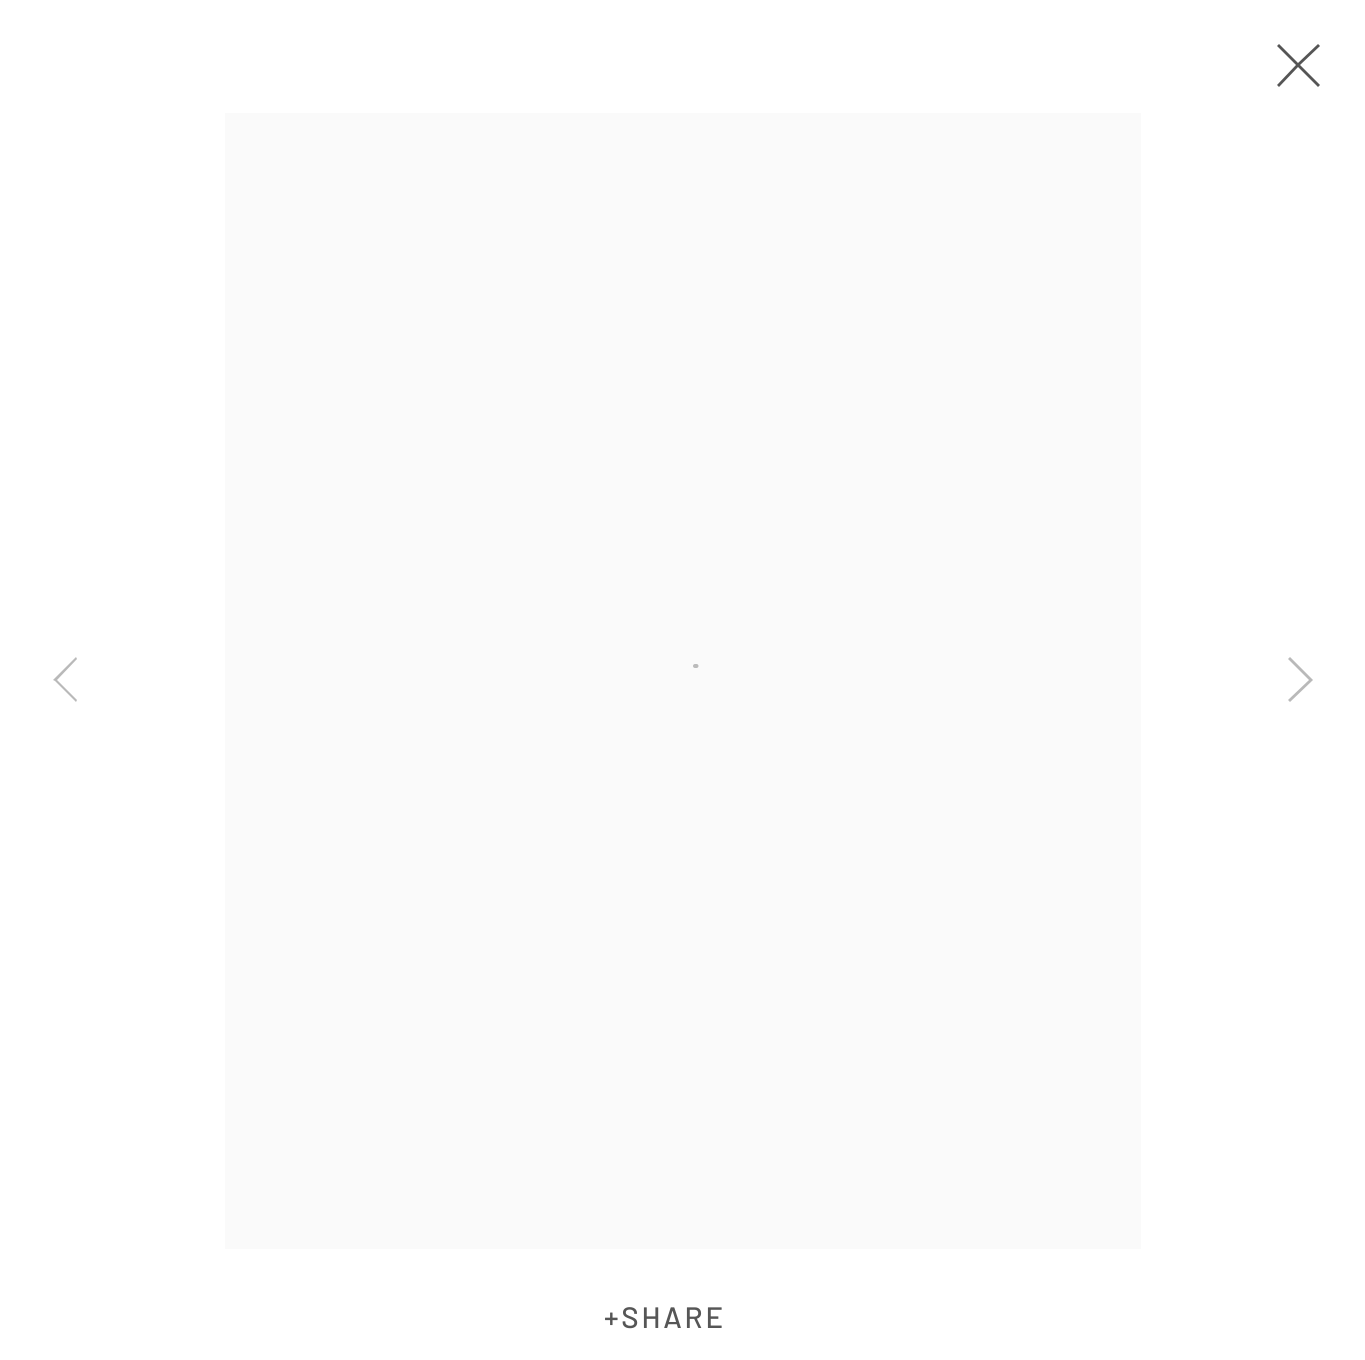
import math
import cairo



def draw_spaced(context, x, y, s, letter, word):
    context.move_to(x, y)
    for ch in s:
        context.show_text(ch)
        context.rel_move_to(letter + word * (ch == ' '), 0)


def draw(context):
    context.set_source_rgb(1, 1, 1)
    context.paint()
    context.set_source_rgb(85 / 255, 85 / 255, 85 / 255)
    context.new_path()
    context.move_to(1320, 46)
    context.line_to(1318, 44)
    context.line_to(1298, 63)
    context.line_to(1279, 44)
    context.line_to(1277, 46)
    context.line_to(1296, 65)
    context.line_to(1277, 85)
    context.line_to(1279, 87)
    context.line_to(1298, 67)
    context.line_to(1318, 87)
    context.line_to(1320, 85)
    context.line_to(1300, 65)
    context.close_path()
    context.fill()
    context.set_source_rgb(185 / 255, 185 / 255, 185 / 255)
    context.new_path()
    context.move_to(55, 681)
    context.line_to(76, 702)
    context.line_to(77, 700)
    context.line_to(57, 680)
    context.line_to(77, 659)
    context.line_to(76, 657)
    context.line_to(53, 680)
    context.close_path()
    context.fill()
    context.new_path()
    context.move_to(1313, 680)
    context.line_to(1290, 657)
    context.line_to(1288, 659)
    context.line_to(1309, 680)
    context.line_to(1288, 700)
    context.line_to(1290, 702)
    context.close_path()
    context.fill()
    context.set_source_rgb(250 / 255, 250 / 255, 250 / 255)
    context.rectangle(225, 113, 916, 1136)
    context.fill()
    context.new_path()
    context.move_to(695, 666)
    context.line_to(696.5, 666)
    context.set_source_rgb(187 / 255, 187 / 255, 187 / 255)
    context.set_line_width(4)
    context.set_line_cap(cairo.LineCap.ROUND)
    context.stroke()
    context.select_font_face("Barlow Medium")
    context.set_font_size(29.5)
    context.set_source_rgb(86 / 255, 86 / 255, 86 / 255)
    draw_spaced(context, 604, 1328, "+SHARE", 2.75, 0)


surface = cairo.ImageSurface(cairo.Format.RGB24, 1365, 1360)
context = cairo.Context(surface)
options = cairo.FontOptions()
options.set_hint_metrics(cairo.HintMetrics.OFF)
options.set_hint_style(cairo.HintStyle.NONE)
context.set_font_options(options)
context.set_miter_limit(4)
draw(context)
surface.write_to_png("out.png")
